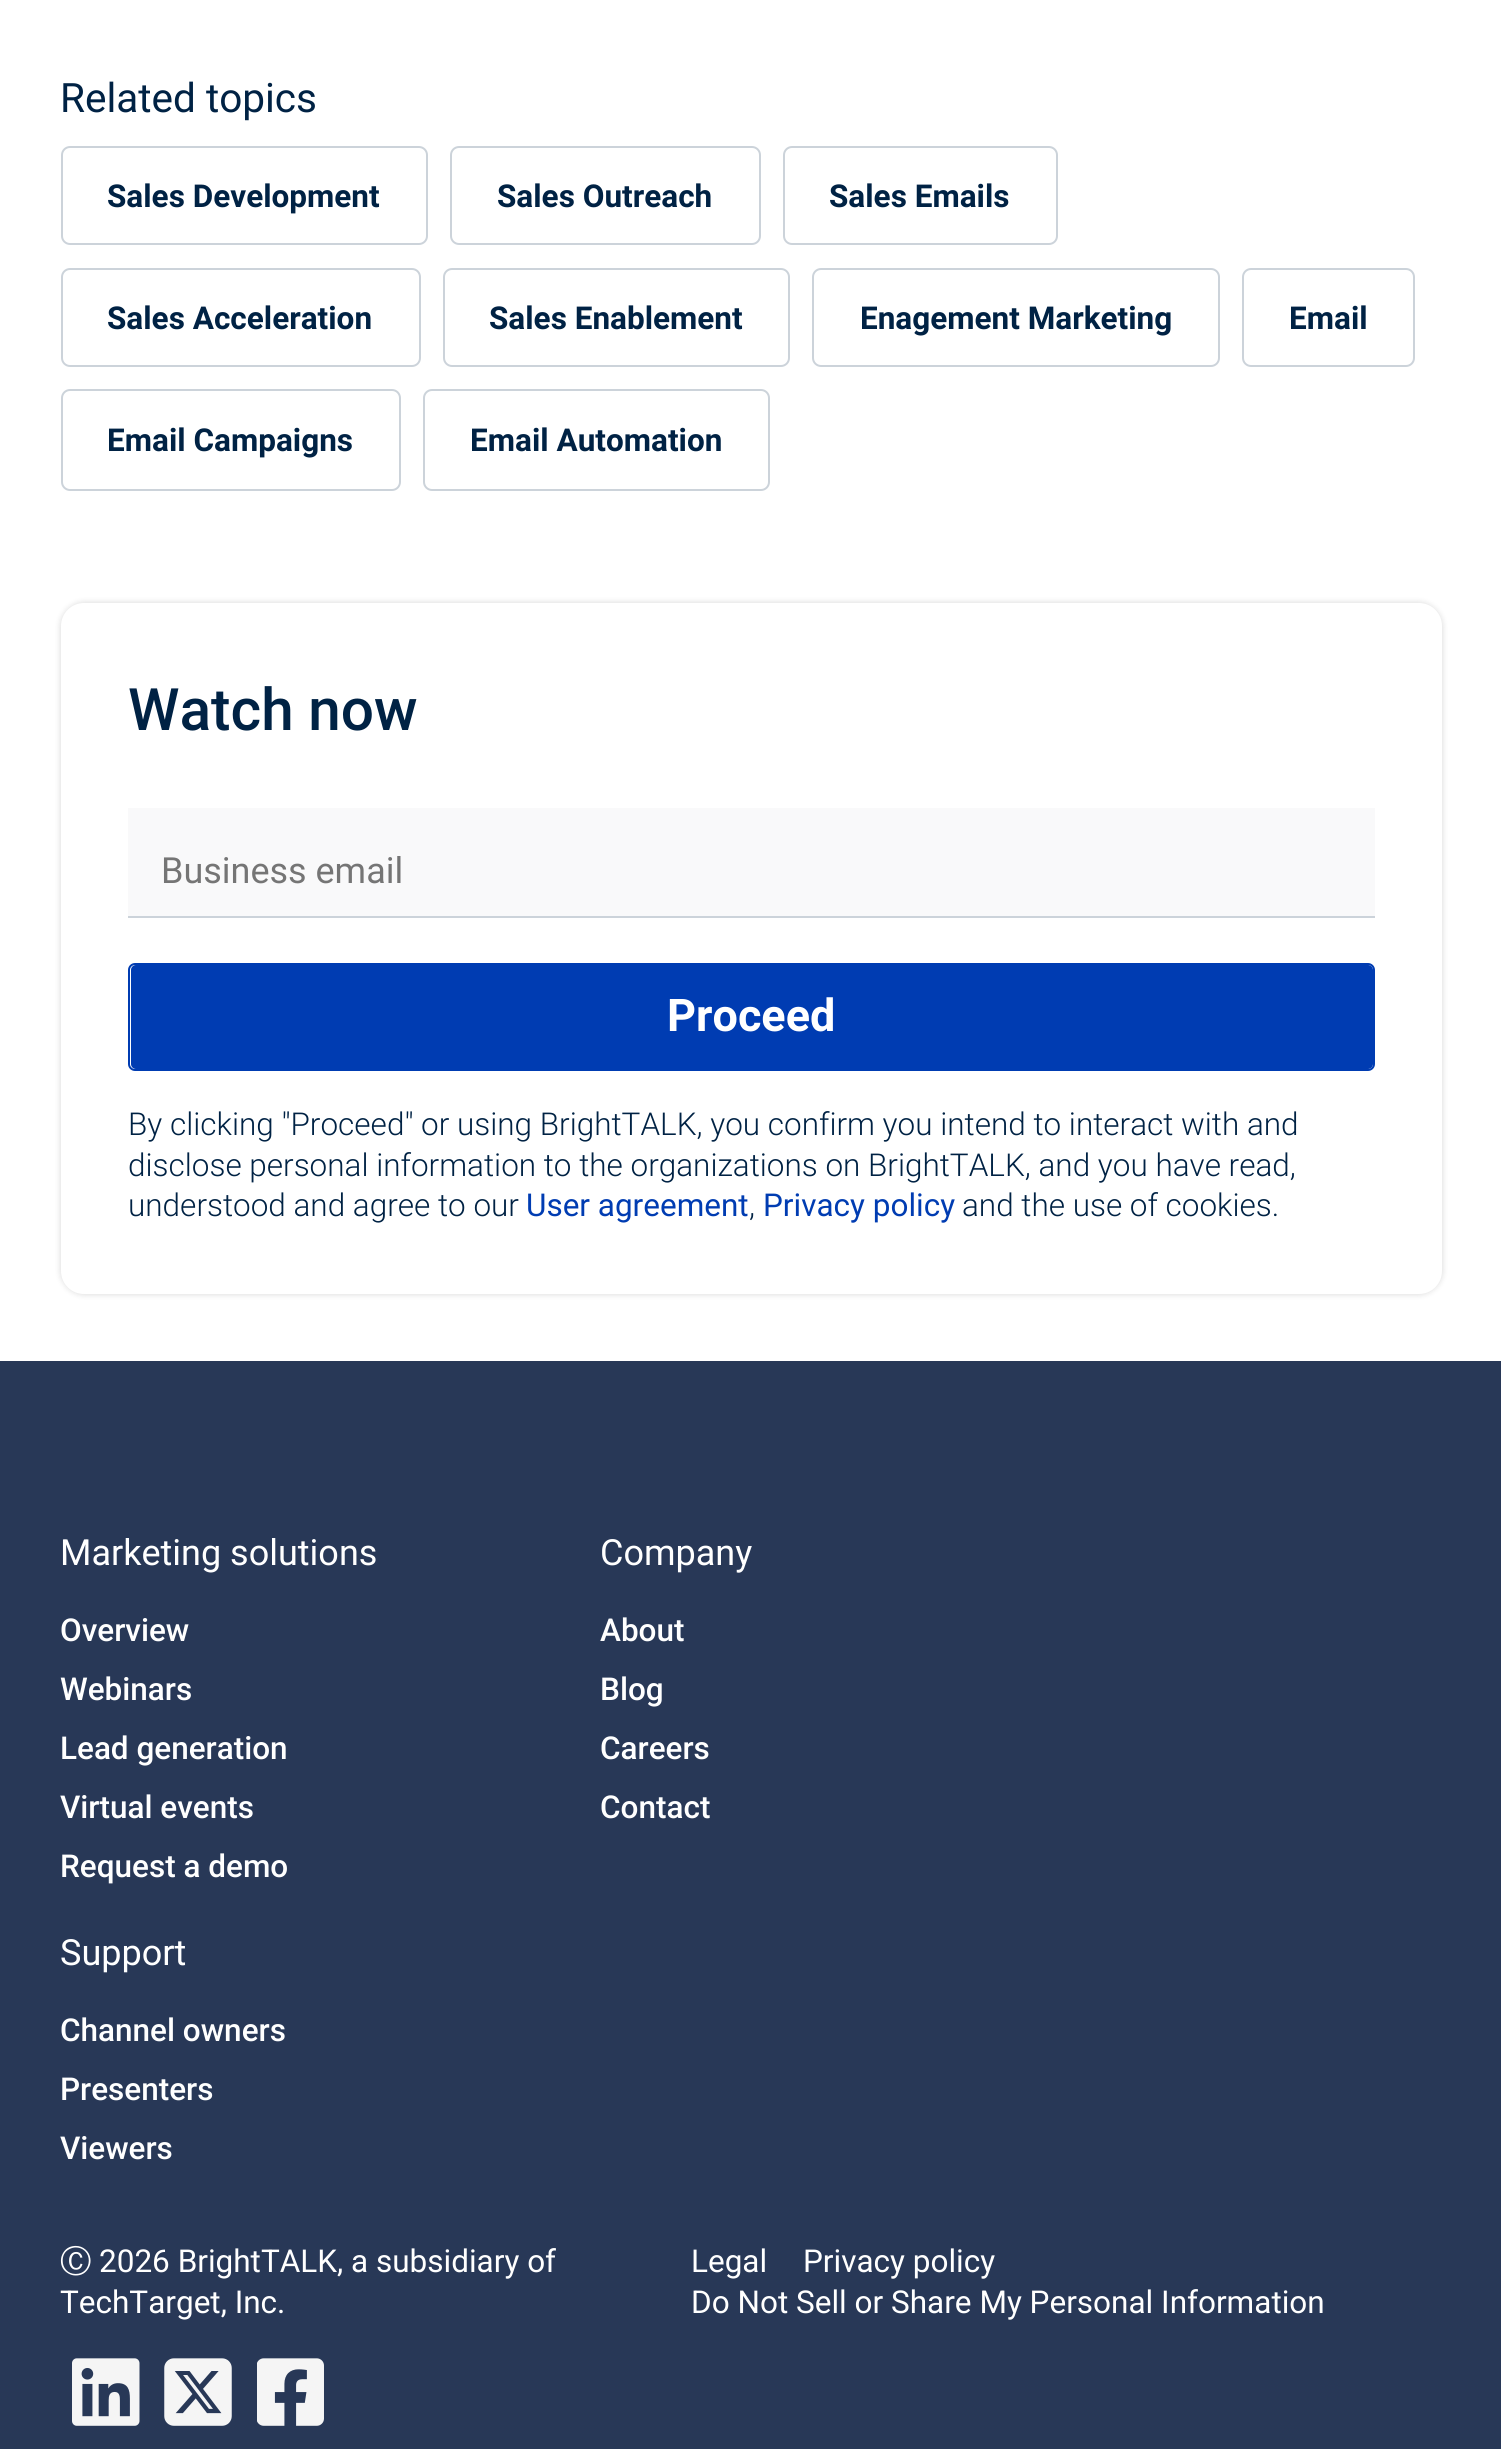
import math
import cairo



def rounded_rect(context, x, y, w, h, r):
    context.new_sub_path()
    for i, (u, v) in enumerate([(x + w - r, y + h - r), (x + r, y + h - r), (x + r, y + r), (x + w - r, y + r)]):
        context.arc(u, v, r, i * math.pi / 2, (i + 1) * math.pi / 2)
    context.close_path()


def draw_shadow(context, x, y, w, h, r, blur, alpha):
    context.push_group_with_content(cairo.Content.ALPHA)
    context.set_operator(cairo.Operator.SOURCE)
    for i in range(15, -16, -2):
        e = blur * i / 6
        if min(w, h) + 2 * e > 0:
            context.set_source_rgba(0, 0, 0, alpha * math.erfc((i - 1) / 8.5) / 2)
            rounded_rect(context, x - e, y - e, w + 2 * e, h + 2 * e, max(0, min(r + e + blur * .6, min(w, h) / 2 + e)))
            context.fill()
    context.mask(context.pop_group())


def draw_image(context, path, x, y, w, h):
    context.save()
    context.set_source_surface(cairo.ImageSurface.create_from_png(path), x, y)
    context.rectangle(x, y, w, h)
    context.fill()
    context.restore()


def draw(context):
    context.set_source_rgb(1, 1, 1)
    context.paint()
    rounded_rect(context, 62, 147, 365, 97, 8)
    context.set_source_rgb(204 / 255, 211 / 255, 218 / 255)
    context.stroke()
    rounded_rect(context, 451, 147, 309, 97, 8)
    context.stroke()
    rounded_rect(context, 784, 147, 273, 97, 8)
    context.stroke()
    rounded_rect(context, 62, 269, 358, 97, 8)
    context.stroke()
    rounded_rect(context, 444, 269, 345, 97, 8)
    context.stroke()
    rounded_rect(context, 813, 269, 406, 97, 8)
    context.stroke()
    rounded_rect(context, 1243, 269, 171, 97, 8)
    context.stroke()
    rounded_rect(context, 62, 390, 338, 100, 8)
    context.stroke()
    rounded_rect(context, 424, 390, 345, 100, 8)
    context.stroke()
    context.set_source_rgb(0, 0, 0)
    draw_shadow(context, 61, 603, 1381, 691, 23, 3.5, 0.16)
    context.set_source_rgb(1, 1, 1)
    rounded_rect(context, 61, 603, 1381, 691, 23)
    context.fill()
    context.set_source_rgb(249 / 255, 249 / 255, 250 / 255)
    context.rectangle(128, 808, 1247, 108)
    context.fill()
    context.set_source_rgb(204 / 255, 211 / 255, 218 / 255)
    context.rectangle(128, 916, 1247, 2)
    context.fill()
    context.set_source_rgb(0, 60 / 255, 178 / 255)
    rounded_rect(context, 131, 965, 1242, 104, 5)
    context.fill()
    rounded_rect(context, 129, 964, 1245, 106, 6)
    context.stroke()
    context.set_source_rgb(40 / 255, 56 / 255, 87 / 255)
    context.rectangle(0, 1361, 1501, 1088)
    context.fill()
    draw_image(context, "images/1.png", 72, 2358, 68, 68)
    draw_image(context, "images/2.png", 164, 2358, 68, 68)
    draw_image(context, "images/3.png", 257, 2358, 67, 68)
    context.select_font_face("Roboto")
    context.set_font_size(40.5)
    context.set_source_rgb(0, 34 / 255, 68 / 255)
    context.move_to(60, 112)
    context.show_text("Related topics")
    context.select_font_face("Roboto", cairo.FontSlant.NORMAL, cairo.FontWeight.BOLD)
    context.set_font_size(31.5)
    context.move_to(107, 207)
    context.show_text("Sales Development")
    context.move_to(497, 207)
    context.show_text("Sales Outreach")
    context.move_to(829, 207)
    context.show_text("Sales Emails")
    context.move_to(107, 329)
    context.show_text("Sales Acceleration")
    context.move_to(489, 329)
    context.show_text("Sales Enablement")
    context.move_to(860, 329)
    context.show_text("Enagement Marketing")
    context.move_to(1289, 329)
    context.show_text("Email")
    context.move_to(107, 451)
    context.show_text("Email Campaigns")
    context.move_to(470, 451)
    context.show_text("Email Automation")
    context.select_font_face("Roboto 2 Medium")
    context.set_font_size(58.5)
    context.move_to(128, 730)
    context.show_text("Watch now")
    context.select_font_face("Roboto 2")
    context.set_font_size(36)
    context.set_source_rgb(117 / 255, 117 / 255, 117 / 255)
    context.move_to(161, 883)
    context.show_text("Business email")
    context.select_font_face("Roboto 2", cairo.FontSlant.NORMAL, cairo.FontWeight.BOLD)
    context.set_font_size(45)
    context.set_source_rgb(1, 1, 1)
    context.move_to(667, 1031)
    context.show_text("Proceed")
    context.select_font_face("Roboto Light")
    context.set_font_size(31.5)
    context.set_source_rgb(0, 34 / 255, 68 / 255)
    context.move_to(128, 1135)
    context.show_text("By clicking \"Proceed\" or using BrightTALK, you confirm you intend to interact with and")
    context.move_to(128, 1176)
    context.show_text("disclose personal information to the organizations on BrightTALK, and you have read,")
    context.move_to(128, 1216)
    context.show_text("understood and agree to our")
    context.select_font_face("Roboto 2")
    context.set_source_rgb(0, 60 / 255, 178 / 255)
    context.move_to(526, 1216)
    context.show_text("User agreement")
    context.select_font_face("Roboto Light")
    context.set_source_rgb(0, 34 / 255, 68 / 255)
    context.move_to(749, 1216)
    context.show_text(",")
    context.select_font_face("Roboto 2")
    context.set_source_rgb(0, 60 / 255, 178 / 255)
    context.move_to(763, 1216)
    context.show_text("Privacy policy")
    context.select_font_face("Roboto Light")
    context.set_source_rgb(0, 34 / 255, 68 / 255)
    context.move_to(962, 1216)
    context.show_text("and the use of cookies.")
    context.select_font_face("Roboto")
    context.set_font_size(36)
    context.set_source_rgb(1, 1, 1)
    context.move_to(60, 1565)
    context.show_text("Marketing solutions")
    context.select_font_face("Roboto Medium")
    context.set_font_size(31.5)
    context.move_to(60, 1641)
    context.show_text("Overview")
    context.move_to(60, 1700)
    context.show_text("Webinars")
    context.move_to(60, 1759)
    context.show_text("Lead generation")
    context.move_to(60, 1818)
    context.show_text("Virtual events")
    context.move_to(60, 1877)
    context.show_text("Request a demo")
    context.select_font_face("Roboto")
    context.set_font_size(36)
    context.move_to(600, 1565)
    context.show_text("Company")
    context.select_font_face("Roboto Medium")
    context.set_font_size(31.5)
    context.move_to(600, 1641)
    context.show_text("About")
    context.move_to(600, 1700)
    context.show_text("Blog")
    context.move_to(600, 1759)
    context.show_text("Careers")
    context.move_to(600, 1818)
    context.show_text("Contact")
    context.select_font_face("Roboto")
    context.set_font_size(36)
    context.move_to(60, 1965)
    context.show_text("Support")
    context.select_font_face("Roboto Medium")
    context.set_font_size(31.5)
    context.move_to(60, 2041)
    context.show_text("Channel owners")
    context.move_to(60, 2100)
    context.show_text("Presenters")
    context.move_to(60, 2159)
    context.show_text("Viewers")
    context.select_font_face("WenQuanYi Zen Hei Medium")
    context.move_to(60, 2272)
    context.show_text("Ⓒ")
    context.select_font_face("Roboto")
    context.move_to(99, 2272)
    context.show_text("2026 BrightTALK, a subsidiary of")
    context.move_to(60, 2313)
    context.show_text("TechTarget, Inc.")
    context.move_to(691, 2272)
    context.show_text("Legal")
    context.move_to(803, 2272)
    context.show_text("Privacy policy")
    context.move_to(691, 2313)
    context.show_text("Do Not Sell or Share My Personal Information")


surface = cairo.ImageSurface(cairo.Format.RGB24, 1501, 2449)
context = cairo.Context(surface)
options = cairo.FontOptions()
options.set_hint_metrics(cairo.HintMetrics.OFF)
options.set_hint_style(cairo.HintStyle.NONE)
context.set_font_options(options)
context.set_miter_limit(4)
draw(context)
surface.write_to_png("out.png")
